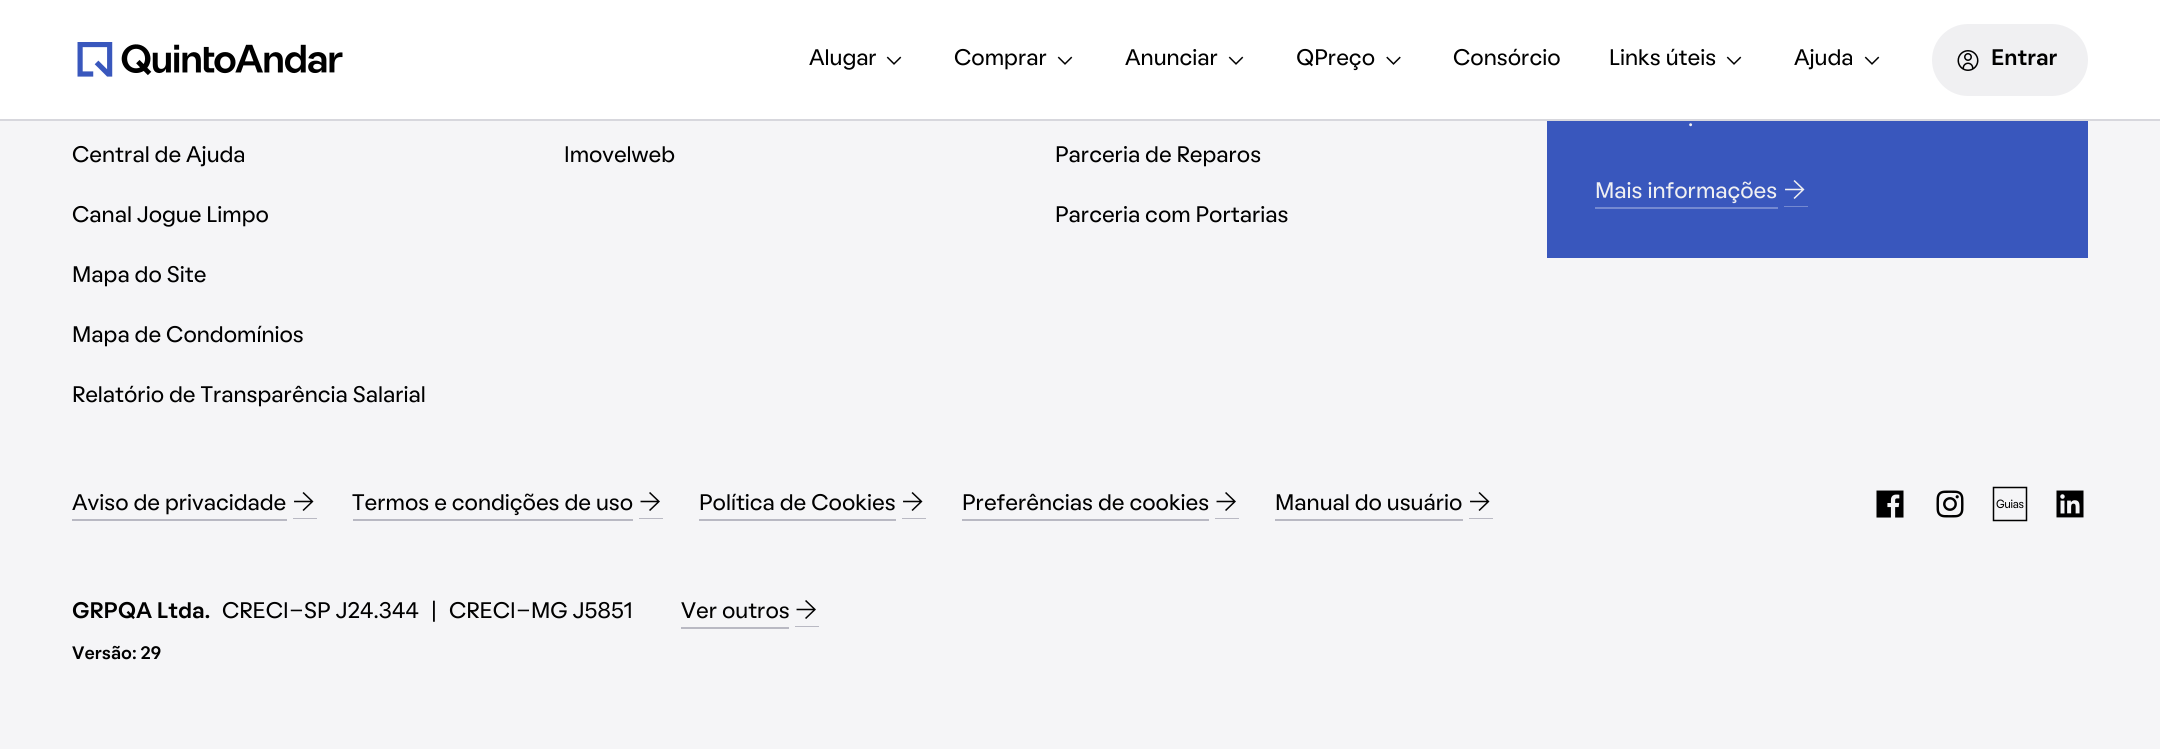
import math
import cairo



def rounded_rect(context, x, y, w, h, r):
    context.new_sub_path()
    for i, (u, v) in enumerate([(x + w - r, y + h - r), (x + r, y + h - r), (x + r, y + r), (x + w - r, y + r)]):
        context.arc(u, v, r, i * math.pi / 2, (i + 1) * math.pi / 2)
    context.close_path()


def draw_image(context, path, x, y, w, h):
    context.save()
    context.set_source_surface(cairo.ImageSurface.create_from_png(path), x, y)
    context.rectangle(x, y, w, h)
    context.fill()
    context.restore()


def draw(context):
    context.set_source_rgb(245 / 255, 245 / 255, 247 / 255)
    context.paint()
    context.set_source_rgb(1, 1, 1)
    context.rectangle(0, 0, 2160, 119)
    context.fill()
    context.set_source_rgb(215 / 255, 215 / 255, 221 / 255)
    context.rectangle(0, 119, 2160, 2)
    context.fill()
    draw_image(context, "images/1.png", 77, 42, 266, 35)
    draw_image(context, "images/2.png", 886, 56, 16, 9)
    draw_image(context, "images/2.png", 1057, 56, 16, 9)
    draw_image(context, "images/2.png", 1228, 56, 16, 9)
    draw_image(context, "images/3.png", 1386, 56, 15, 9)
    draw_image(context, "images/2.png", 1726, 56, 16, 9)
    draw_image(context, "images/2.png", 1864, 56, 16, 9)
    context.set_source_rgb(240 / 255, 240 / 255, 242 / 255)
    rounded_rect(context, 1932, 24, 156, 72, 36)
    context.fill()
    draw_image(context, "images/4.png", 1957, 50, 22, 21)
    context.set_source_rgb(57 / 255, 87 / 255, 189 / 255)
    context.rectangle(1547, 121, 541, 137)
    context.fill()
    context.set_source_rgb(116 / 255, 137 / 255, 209 / 255)
    context.rectangle(1595, 207, 183, 2)
    context.fill()
    context.rectangle(1784, 206, 24, 1)
    context.fill()
    draw_image(context, "images/5.png", 1785, 180, 20, 19)
    context.set_source_rgb(185 / 255, 185 / 255, 195 / 255)
    context.rectangle(72, 519, 215, 2)
    context.fill()
    context.rectangle(293, 518, 24, 1)
    context.fill()
    draw_image(context, "images/6.png", 294, 492, 20, 19)
    context.rectangle(353, 519, 280, 2)
    context.fill()
    context.rectangle(639, 518, 24, 1)
    context.fill()
    draw_image(context, "images/7.png", 640, 492, 20, 19)
    context.rectangle(699, 519, 197, 2)
    context.fill()
    context.rectangle(902, 518, 24, 1)
    context.fill()
    draw_image(context, "images/6.png", 903, 492, 20, 19)
    context.rectangle(962, 519, 247, 2)
    context.fill()
    context.rectangle(1215, 518, 24, 1)
    context.fill()
    draw_image(context, "images/7.png", 1216, 492, 20, 19)
    context.rectangle(1275, 519, 188, 2)
    context.fill()
    context.rectangle(1469, 518, 24, 1)
    context.fill()
    draw_image(context, "images/6.png", 1470, 492, 20, 19)
    draw_image(context, "images/8.png", 1876, 490, 28, 28)
    draw_image(context, "images/9.png", 1936, 490, 28, 28)
    draw_image(context, "images/10.png", 1992, 486, 36, 36)
    draw_image(context, "images/11.png", 2056, 490, 28, 28)
    context.rectangle(681, 627, 108, 2)
    context.fill()
    context.rectangle(795, 626, 24, 1)
    context.fill()
    draw_image(context, "images/7.png", 796, 600, 20, 19)
    context.select_font_face("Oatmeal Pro")
    context.set_font_size(22.5)
    context.set_source_rgb(0, 0, 0)
    context.move_to(809, 65)
    context.show_text("Alugar")
    context.move_to(954, 65)
    context.show_text("Comprar")
    context.move_to(1125, 65)
    context.show_text("Anunciar")
    context.move_to(1296, 65)
    context.show_text("QPreço")
    context.move_to(1453, 65)
    context.show_text("Consórcio")
    context.move_to(1609, 65)
    context.show_text("Links úteis")
    context.move_to(1794, 65)
    context.show_text("Ajuda")
    context.select_font_face("Oatmeal Pro SemiBold")
    context.move_to(1991, 65)
    context.show_text("Entrar")
    context.select_font_face("Oatmeal Pro")
    context.move_to(72, 162)
    context.show_text("Central de Ajuda")
    context.move_to(72, 222)
    context.show_text("Canal Jogue Limpo")
    context.move_to(72, 282)
    context.show_text("Mapa do Site")
    context.move_to(72, 342)
    context.show_text("Mapa de Condomínios")
    context.move_to(72, 402)
    context.show_text("Relatório de Transparência Salarial")
    context.move_to(564, 162)
    context.show_text("Imovelweb")
    context.move_to(1055, 162)
    context.show_text("Parceria de Reparos")
    context.move_to(1055, 222)
    context.show_text("Parceria com Portarias")
    context.set_source_rgb(240 / 255, 240 / 255, 242 / 255)
    context.move_to(1688, 126)
    context.show_text(".")
    context.move_to(1595, 198)
    context.show_text("Mais informações")
    context.set_source_rgb(0, 0, 0)
    context.move_to(72, 510)
    context.show_text("Aviso de privacidade")
    context.move_to(352, 510)
    context.show_text("Termos e condições de uso")
    context.move_to(699, 510)
    context.show_text("Política de Cookies")
    context.move_to(962, 510)
    context.show_text("Preferências de cookies")
    context.move_to(1275, 510)
    context.show_text("Manual do usuário")
    context.select_font_face("Oatmeal Pro SemiBold")
    context.move_to(72, 618)
    context.show_text("GRPQA Ltda.")
    context.select_font_face("Oatmeal Pro")
    context.move_to(222, 618)
    context.show_text("CRECI-SP J24.344")
    context.select_font_face("Liberation Sans")
    context.move_to(431, 617)
    context.show_text("|")
    context.select_font_face("Oatmeal Pro")
    context.move_to(449, 618)
    context.show_text("CRECI-MG J5851")
    context.move_to(681, 618)
    context.show_text("Ver outros")
    context.select_font_face("Oatmeal Pro SemiBold")
    context.set_font_size(18)
    context.move_to(72, 659)
    context.show_text("Versão: 29")


surface = cairo.ImageSurface(cairo.Format.RGB24, 2160, 749)
context = cairo.Context(surface)
options = cairo.FontOptions()
options.set_hint_metrics(cairo.HintMetrics.OFF)
options.set_hint_style(cairo.HintStyle.NONE)
context.set_font_options(options)
context.set_miter_limit(4)
draw(context)
surface.write_to_png("out.png")
